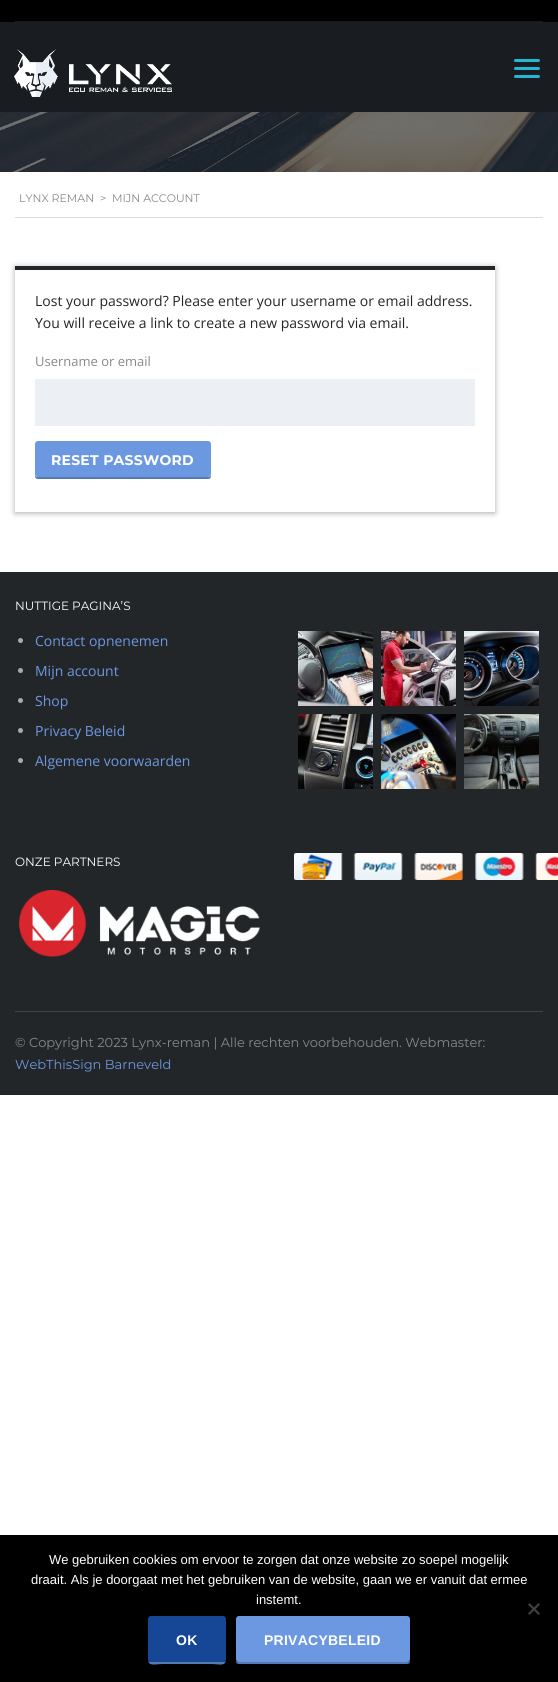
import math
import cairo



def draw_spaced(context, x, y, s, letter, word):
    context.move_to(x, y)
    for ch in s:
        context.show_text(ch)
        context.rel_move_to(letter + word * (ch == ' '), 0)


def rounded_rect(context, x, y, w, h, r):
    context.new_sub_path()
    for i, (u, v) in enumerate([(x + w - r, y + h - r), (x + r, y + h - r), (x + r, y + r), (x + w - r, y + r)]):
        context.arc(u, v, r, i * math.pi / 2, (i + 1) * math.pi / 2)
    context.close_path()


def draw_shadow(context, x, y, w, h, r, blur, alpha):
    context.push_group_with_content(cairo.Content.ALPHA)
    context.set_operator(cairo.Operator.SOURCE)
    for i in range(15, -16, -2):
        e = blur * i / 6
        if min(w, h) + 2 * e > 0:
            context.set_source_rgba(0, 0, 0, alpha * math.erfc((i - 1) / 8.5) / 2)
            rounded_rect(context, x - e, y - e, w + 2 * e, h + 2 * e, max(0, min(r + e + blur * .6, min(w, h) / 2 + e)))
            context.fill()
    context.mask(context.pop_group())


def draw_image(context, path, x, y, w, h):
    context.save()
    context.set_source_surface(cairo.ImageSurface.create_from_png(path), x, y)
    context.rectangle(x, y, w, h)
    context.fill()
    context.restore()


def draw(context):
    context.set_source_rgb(1, 1, 1)
    context.paint()
    context.set_source_rgb(0, 0, 0)
    context.rectangle(0, 0, 558, 22)
    context.fill()
    context.set_source_rgb(26 / 255, 26 / 255, 26 / 255)
    context.rectangle(15, 21, 528, 1)
    context.fill()
    context.set_source_rgb(25 / 255, 29 / 255, 33 / 255)
    context.rectangle(0, 22, 558, 90)
    context.fill()
    draw_image(context, "images/1.png", 14, 49, 158, 48)
    context.set_source_rgb(34 / 255, 183 / 255, 210 / 255)
    rounded_rect(context, 514, 59, 26, 3, 1.5)
    context.fill()
    rounded_rect(context, 514, 67, 26, 3, 1.5)
    context.fill()
    rounded_rect(context, 514, 75, 26, 3, 1.5)
    context.fill()
    draw_image(context, "images/2.png", 0, 112, 558, 60)
    context.set_source_rgb(221 / 255, 221 / 255, 221 / 255)
    context.rectangle(15, 217, 528, 1)
    context.fill()
    context.save()
    context.set_fill_rule(cairo.FillRule.EVEN_ODD)
    context.new_path()
    context.move_to(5, 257)
    context.line_to(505, 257)
    context.line_to(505, 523)
    context.line_to(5, 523)
    context.close_path()
    context.move_to(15, 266)
    context.line_to(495, 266)
    context.line_to(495, 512)
    context.line_to(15, 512)
    context.close_path()
    context.clip()
    context.set_source_rgb(35 / 255, 38 / 255, 40 / 255)
    draw_shadow(context, 15, 267, 480, 246, 0, 3, 0.4)
    context.restore()
    context.set_source_rgb(35 / 255, 38 / 255, 40 / 255)
    context.rectangle(15, 266, 480, 4)
    context.fill()
    context.set_source_rgb(236 / 255, 239 / 255, 243 / 255)
    context.rectangle(35, 379, 440, 47)
    context.fill()
    context.set_source_rgb(86 / 255, 122 / 255, 180 / 255)
    context.new_path()
    context.move_to(35, 474)
    context.line_to(35, 476)
    context.curve_to(35, 478, 36, 479, 38, 479)
    context.line_to(208, 479)
    context.curve_to(210, 479, 211, 478, 211, 476)
    context.line_to(211, 474)
    context.curve_to(211, 476, 210, 477, 208, 477)
    context.line_to(38, 477)
    context.curve_to(36, 477, 35, 476, 35, 474)
    context.close_path()
    context.fill()
    context.set_source_rgb(108 / 255, 152 / 255, 225 / 255)
    rounded_rect(context, 35, 441, 176, 36, 3)
    context.fill()
    context.set_source_rgb(35 / 255, 38 / 255, 40 / 255)
    context.rectangle(0, 572, 558, 523)
    context.fill()
    context.set_source_rgb(170 / 255, 170 / 255, 170 / 255)
    context.arc(20.5, 640.5, 2.5, 0, 2 * math.pi)
    context.fill()
    context.arc(20.5, 670.5, 2.5, 0, 2 * math.pi)
    context.fill()
    context.arc(20.5, 700.5, 2.5, 0, 2 * math.pi)
    context.fill()
    context.arc(20.5, 730.5, 2.5, 0, 2 * math.pi)
    context.fill()
    context.arc(20.5, 760.5, 2.5, 0, 2 * math.pi)
    context.fill()
    draw_image(context, "images/3.png", 298, 631, 75, 75)
    draw_image(context, "images/4.png", 381, 631, 75, 75)
    draw_image(context, "images/5.png", 464, 631, 75, 75)
    draw_image(context, "images/6.png", 298, 714, 75, 75)
    draw_image(context, "images/7.png", 381, 714, 75, 75)
    draw_image(context, "images/8.png", 464, 714, 75, 75)
    draw_image(context, "images/9.png", 19, 890, 241, 67)
    draw_image(context, "images/10.png", 294, 853, 264, 27)
    context.set_source_rgb(68 / 255, 68 / 255, 68 / 255)
    context.rectangle(15, 1011, 528, 1)
    context.fill()
    context.set_source_rgb(0, 0, 0)
    context.rectangle(0, 1535, 558, 147)
    context.fill()
    context.set_source_rgb(64 / 255, 64 / 255, 64 / 255)
    context.new_path()
    context.move_to(538.5, 1603)
    context.line_to(540, 1604.5)
    context.line_to(529.5, 1615)
    context.line_to(528, 1613.5)
    context.close_path()
    context.fill()
    context.new_path()
    context.move_to(528, 1604.5)
    context.line_to(529.5, 1603)
    context.line_to(540, 1613.5)
    context.line_to(538.5, 1615)
    context.close_path()
    context.fill()
    context.set_source_rgb(86 / 255, 122 / 255, 180 / 255)
    context.new_path()
    context.move_to(148, 1659)
    context.curve_to(148, 1667, 155, 1664, 163, 1664)
    context.line_to(211, 1664)
    context.curve_to(219, 1664, 226, 1667, 226, 1659)
    context.curve_to(226, 1661, 225, 1662, 223, 1662)
    context.line_to(151, 1662)
    context.curve_to(149, 1662, 148, 1661, 148, 1659)
    context.close_path()
    context.fill()
    context.set_source_rgb(21 / 255, 71 / 255, 150 / 255)
    rounded_rect(context, 148, 1616, 78, 46, 3)
    context.fill()
    context.set_source_rgb(86 / 255, 122 / 255, 180 / 255)
    context.new_path()
    context.move_to(236, 1659)
    context.line_to(236, 1661)
    context.curve_to(236, 1663, 237, 1664, 239, 1664)
    context.line_to(407, 1664)
    context.curve_to(409, 1664, 410, 1663, 410, 1661)
    context.line_to(410, 1659)
    context.curve_to(410, 1661, 409, 1662, 407, 1662)
    context.line_to(239, 1662)
    context.curve_to(237, 1662, 236, 1661, 236, 1659)
    context.close_path()
    context.fill()
    context.set_source_rgb(108 / 255, 152 / 255, 225 / 255)
    rounded_rect(context, 236, 1616, 174, 46, 3)
    context.fill()
    context.select_font_face("Montserrat")
    context.set_font_size(11)
    context.set_source_rgb(136 / 255, 136 / 255, 136 / 255)
    context.move_to(19, 202)
    context.show_text("LYNX REMAN")
    context.move_to(100, 202)
    context.show_text(">")
    context.move_to(112, 202)
    context.show_text("MIJN ACCOUNT")
    context.select_font_face("Open Sans")
    context.set_font_size(14)
    context.set_source_rgb(35 / 255, 38 / 255, 40 / 255)
    context.move_to(35, 306)
    context.show_text("Lost your password? Please enter your username or email address.")
    context.move_to(35, 328)
    context.show_text("You will receive a link to create a new password via email.")
    context.set_font_size(13)
    context.set_source_rgb(136 / 255, 136 / 255, 136 / 255)
    context.move_to(35, 366)
    context.show_text("Username or email")
    context.select_font_face("Montserrat", cairo.FontSlant.NORMAL, cairo.FontWeight.BOLD)
    context.set_font_size(14)
    context.set_source_rgb(1, 1, 1)
    draw_spaced(context, 51, 465, "RESET PASSWORD", 0.25, 0)
    context.select_font_face("Montserrat")
    context.set_font_size(12)
    context.move_to(15, 610)
    context.show_text("NUTTIGE PAGINA’S")
    context.select_font_face("Open Sans")
    context.set_font_size(14)
    context.set_source_rgb(108 / 255, 152 / 255, 225 / 255)
    context.move_to(35, 646)
    context.show_text("Contact opnenemen")
    context.move_to(35, 676)
    context.show_text("Mijn account")
    context.move_to(35, 706)
    context.show_text("Shop")
    context.move_to(35, 736)
    context.show_text("Privacy Beleid")
    context.move_to(35, 766)
    context.show_text("Algemene voorwaarden")
    context.select_font_face("Montserrat")
    context.set_font_size(12)
    context.set_source_rgb(1, 1, 1)
    context.move_to(15, 866)
    context.show_text("ONZE PARTNERS")
    context.set_font_size(13)
    context.set_source_rgb(136 / 255, 136 / 255, 136 / 255)
    context.move_to(15, 1047)
    context.show_text("© Copyright 2023 Lynx-reman | Alle rechten voorbehouden. Webmaster:")
    context.set_source_rgb(108 / 255, 152 / 255, 225 / 255)
    context.move_to(15, 1069)
    context.show_text("WebThisSign Barneveld")
    context.select_font_face("Liberation Sans")
    context.set_source_rgb(1, 1, 1)
    context.move_to(49, 1564)
    context.show_text("We gebruiken cookies om ervoor te zorgen dat onze website zo soepel mogelijk")
    context.move_to(31, 1584)
    context.show_text("draait. Als je doorgaat met het gebruiken van de website, gaan we er vanuit dat ermee")
    context.move_to(256, 1604)
    context.show_text("instemt.")
    context.select_font_face("Liberation Sans", cairo.FontSlant.NORMAL, cairo.FontWeight.BOLD)
    context.set_font_size(14)
    draw_spaced(context, 176, 1645, "OK", 0.25, 0)
    draw_spaced(context, 264, 1645, "PRIVACYBELEID", 0.25, 0)


surface = cairo.ImageSurface(cairo.Format.RGB24, 558, 1682)
context = cairo.Context(surface)
options = cairo.FontOptions()
options.set_hint_metrics(cairo.HintMetrics.OFF)
options.set_hint_style(cairo.HintStyle.NONE)
context.set_font_options(options)
context.set_miter_limit(4)
draw(context)
surface.write_to_png("out.png")
